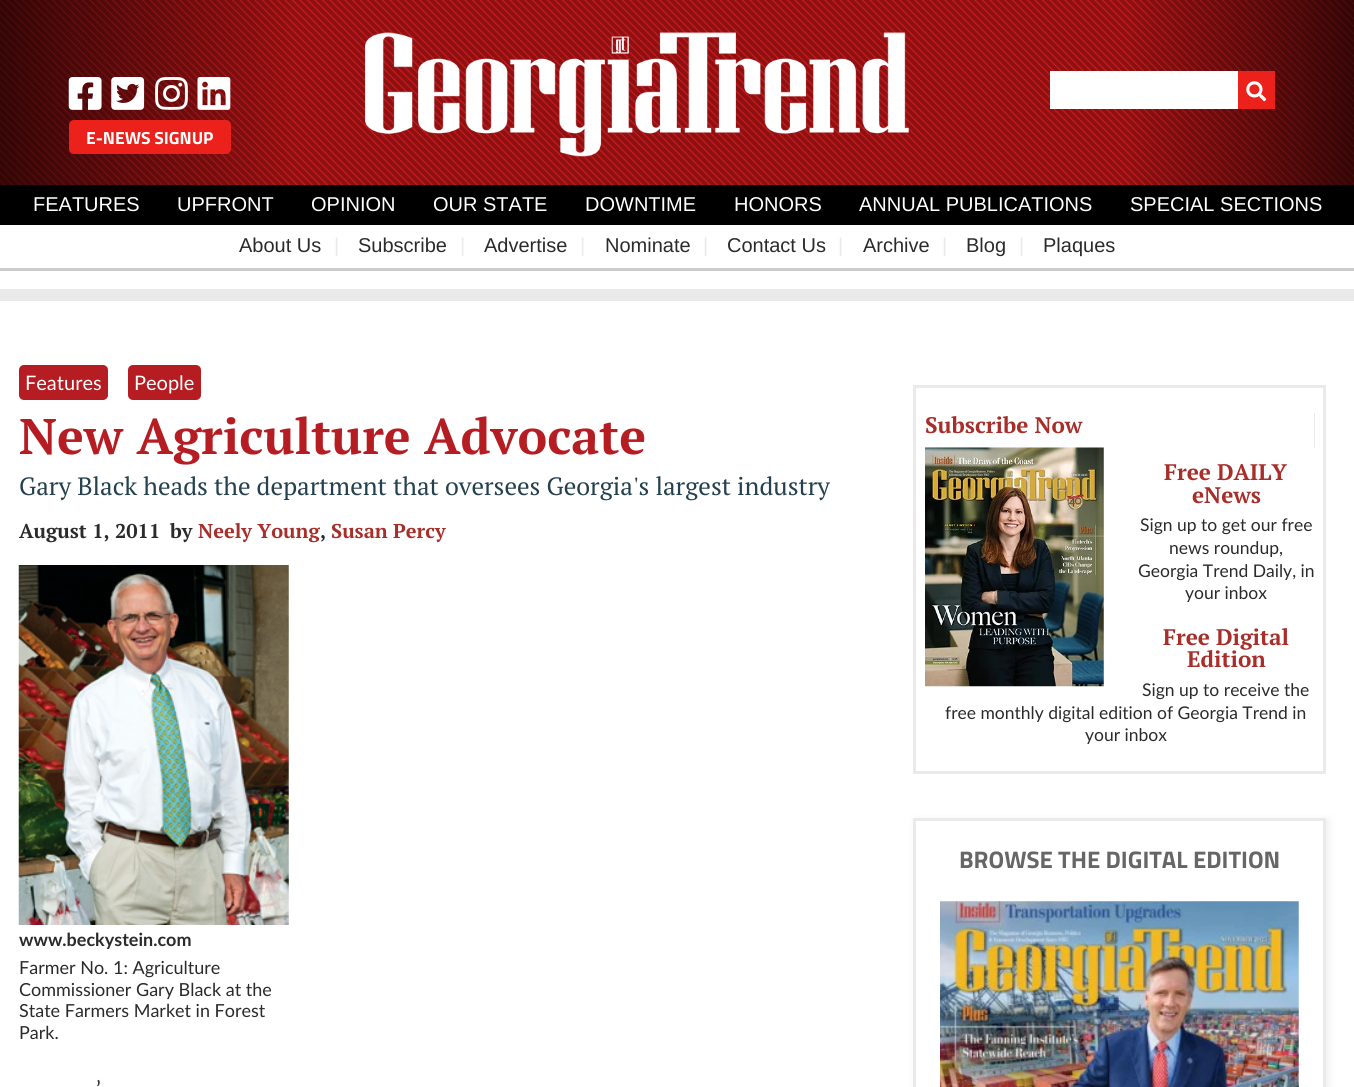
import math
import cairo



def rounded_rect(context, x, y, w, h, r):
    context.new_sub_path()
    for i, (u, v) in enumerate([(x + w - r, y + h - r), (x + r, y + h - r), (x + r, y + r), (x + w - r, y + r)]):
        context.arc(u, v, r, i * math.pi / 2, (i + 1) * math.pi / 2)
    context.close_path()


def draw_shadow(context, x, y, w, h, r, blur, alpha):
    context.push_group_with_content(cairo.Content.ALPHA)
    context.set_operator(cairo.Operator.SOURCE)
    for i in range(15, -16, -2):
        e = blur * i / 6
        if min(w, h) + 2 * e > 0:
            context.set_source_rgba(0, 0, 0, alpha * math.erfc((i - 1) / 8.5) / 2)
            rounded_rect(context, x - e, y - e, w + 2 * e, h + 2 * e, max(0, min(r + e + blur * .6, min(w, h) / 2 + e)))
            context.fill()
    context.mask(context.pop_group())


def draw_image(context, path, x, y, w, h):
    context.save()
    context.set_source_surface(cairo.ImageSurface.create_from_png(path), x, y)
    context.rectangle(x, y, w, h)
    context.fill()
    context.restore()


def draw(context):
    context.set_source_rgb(1, 1, 1)
    context.paint()
    draw_image(context, "images/1.png", 0, 0, 1354, 185)
    gradient = cairo.LinearGradient(0, 113, 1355, 112)
    gradient.add_color_stop_rgba(0, 0, 0, 0, 0.65)
    gradient.add_color_stop_rgba(0.22, 0, 0, 0, 0)
    gradient.add_color_stop_rgba(0.83, 0, 0, 0, 0)
    gradient.add_color_stop_rgba(1, 0, 0, 0, 0.65)
    context.set_source(gradient)
    context.rectangle(0, 0, 1354, 185)
    context.fill()
    draw_image(context, "images/2.png", 365, 32, 544, 125)
    context.set_source_rgb(1, 1, 1)
    context.rectangle(1050, 71, 188, 38)
    context.fill()
    context.set_source_rgb(236 / 255, 33 / 255, 27 / 255)
    context.rectangle(1238, 71, 37, 38)
    context.fill()
    draw_image(context, "images/3.png", 1246, 81, 21, 21)
    draw_image(context, "images/4.png", 68, 77, 34, 33)
    draw_image(context, "images/5.png", 111, 77, 34, 33)
    draw_image(context, "images/6.png", 155, 77, 33, 33)
    draw_image(context, "images/7.png", 197, 77, 34, 33)
    rounded_rect(context, 69, 120, 162, 34, 5)
    context.fill()
    context.set_source_rgb(0, 0, 0)
    context.rectangle(0, 185, 1354, 40)
    context.fill()
    context.set_source_rgb(204 / 255, 204 / 255, 204 / 255)
    context.rectangle(0, 268, 1354, 3)
    context.fill()
    context.set_source_rgb(234 / 255, 234 / 255, 234 / 255)
    context.rectangle(0, 289, 1354, 12)
    context.fill()
    context.set_source_rgb(182 / 255, 29 / 255, 34 / 255)
    rounded_rect(context, 19, 365, 89, 35, 5)
    context.fill()
    rounded_rect(context, 128, 365, 73, 35, 5)
    context.fill()
    draw_image(context, "images/8.png", 18, 565, 271, 360)
    context.rectangle(914.5, 386.5, 410, 386)
    context.set_source_rgb(234 / 255, 234 / 255, 234 / 255)
    context.set_line_width(3)
    context.stroke()
    context.rectangle(1314, 413, 1, 35)
    context.fill()
    draw_image(context, "images/9.png", 925, 447, 179, 240)
    context.save()
    context.set_fill_rule(cairo.FillRule.EVEN_ODD)
    context.new_path()
    context.move_to(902, 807)
    context.line_to(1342, 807)
    context.line_to(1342, 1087)
    context.line_to(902, 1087)
    context.close_path()
    context.move_to(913, 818)
    context.line_to(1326, 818)
    context.line_to(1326, 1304)
    context.line_to(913, 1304)
    context.close_path()
    context.clip()
    context.set_source_rgb(239 / 255, 239 / 255, 239 / 255)
    draw_shadow(context, 915, 820, 414, 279, 0, 4, 1)
    context.restore()
    context.rectangle(914.5, 819.5, 410, 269)
    context.stroke()
    draw_image(context, "images/10.png", 940, 901, 359, 186)
    context.select_font_face("Titillium Web", cairo.FontSlant.NORMAL, cairo.FontWeight.BOLD)
    context.set_font_size(17.5)
    context.set_source_rgb(1, 1, 1)
    context.move_to(86, 144)
    context.show_text("E-NEWS SIGNUP")
    context.select_font_face("Liberation Sans")
    context.set_font_size(20)
    context.move_to(33, 211)
    context.show_text("FEATURES")
    context.move_to(177, 211)
    context.show_text("UPFRONT")
    context.move_to(311, 211)
    context.show_text("OPINION")
    context.move_to(433, 211)
    context.show_text("OUR STATE")
    context.move_to(585, 211)
    context.show_text("DOWNTIME")
    context.move_to(734, 211)
    context.show_text("HONORS")
    context.move_to(859, 211)
    context.show_text("ANNUAL PUBLICATIONS")
    context.move_to(1130, 211)
    context.show_text("SPECIAL SECTIONS")
    context.set_source_rgb(43 / 255, 43 / 255, 43 / 255)
    context.move_to(239, 252)
    context.show_text("About Us")
    context.set_source_rgb(234 / 255, 234 / 255, 234 / 255)
    context.move_to(334, 252)
    context.show_text("|")
    context.set_source_rgb(43 / 255, 43 / 255, 43 / 255)
    context.move_to(358, 252)
    context.show_text("Subscribe")
    context.set_source_rgb(234 / 255, 234 / 255, 234 / 255)
    context.move_to(460, 252)
    context.show_text("|")
    context.set_source_rgb(43 / 255, 43 / 255, 43 / 255)
    context.move_to(484, 252)
    context.show_text("Advertise")
    context.set_source_rgb(234 / 255, 234 / 255, 234 / 255)
    context.move_to(580, 252)
    context.show_text("|")
    context.set_source_rgb(43 / 255, 43 / 255, 43 / 255)
    context.move_to(605, 252)
    context.show_text("Nominate")
    context.set_source_rgb(234 / 255, 234 / 255, 234 / 255)
    context.move_to(703, 252)
    context.show_text("|")
    context.set_source_rgb(43 / 255, 43 / 255, 43 / 255)
    context.move_to(727, 252)
    context.show_text("Contact Us")
    context.set_source_rgb(234 / 255, 234 / 255, 234 / 255)
    context.move_to(838, 252)
    context.show_text("|")
    context.set_source_rgb(43 / 255, 43 / 255, 43 / 255)
    context.move_to(863, 252)
    context.show_text("Archive")
    context.set_source_rgb(234 / 255, 234 / 255, 234 / 255)
    context.move_to(942, 252)
    context.show_text("|")
    context.set_source_rgb(43 / 255, 43 / 255, 43 / 255)
    context.move_to(966, 252)
    context.show_text("Blog")
    context.set_source_rgb(234 / 255, 234 / 255, 234 / 255)
    context.move_to(1019, 252)
    context.show_text("|")
    context.set_source_rgb(43 / 255, 43 / 255, 43 / 255)
    context.move_to(1043, 252)
    context.show_text("Plaques")
    context.select_font_face("Lato")
    context.set_source_rgb(1, 1, 1)
    context.move_to(25, 390)
    context.show_text("Features")
    context.move_to(134, 390)
    context.show_text("People")
    context.select_font_face("PT Serif", cairo.FontSlant.NORMAL, cairo.FontWeight.BOLD)
    context.set_font_size(50)
    context.set_source_rgb(182 / 255, 29 / 255, 34 / 255)
    context.move_to(19, 454)
    context.show_text("New Agriculture Advocate")
    context.select_font_face("PT Serif")
    context.set_font_size(25)
    context.set_source_rgb(36 / 255, 65 / 255, 77 / 255)
    context.move_to(19, 495)
    context.show_text("Gary Black heads the department that oversees Georgia's largest industry")
    context.select_font_face("PT Serif", cairo.FontSlant.NORMAL, cairo.FontWeight.BOLD)
    context.set_font_size(20)
    context.set_source_rgb(43 / 255, 43 / 255, 43 / 255)
    context.move_to(19, 538)
    context.show_text("August 1, 2011")
    context.move_to(170, 538)
    context.show_text("by")
    context.set_source_rgb(168 / 255, 46 / 255, 42 / 255)
    context.move_to(198, 538)
    context.show_text("Neely Young")
    context.set_source_rgb(43 / 255, 43 / 255, 43 / 255)
    context.move_to(320, 538)
    context.show_text(",")
    context.set_source_rgb(168 / 255, 46 / 255, 42 / 255)
    context.move_to(331, 538)
    context.show_text("Susan Percy")
    context.select_font_face("Lato", cairo.FontSlant.NORMAL, cairo.FontWeight.BOLD)
    context.set_font_size(18)
    context.set_source_rgb(43 / 255, 43 / 255, 43 / 255)
    context.move_to(19, 946)
    context.show_text("www.beckystein.com")
    context.select_font_face("Lato")
    context.move_to(19, 974)
    context.show_text("Farmer No. 1: Agriculture")
    context.move_to(19, 996)
    context.show_text("Commissioner Gary Black at the")
    context.move_to(19, 1017)
    context.show_text("State Farmers Market in Forest")
    context.move_to(19, 1039)
    context.show_text("Park.")
    context.set_font_size(22.5)
    context.set_source_rgb(51 / 255, 51 / 255, 51 / 255)
    context.move_to(96, 1097)
    context.show_text("’")
    context.select_font_face("PT Serif", cairo.FontSlant.NORMAL, cairo.FontWeight.BOLD)
    context.set_source_rgb(168 / 255, 46 / 255, 42 / 255)
    context.move_to(925, 433)
    context.show_text("Subscribe Now")
    context.move_to(1164, 480)
    context.show_text("Free DAILY")
    context.move_to(1192, 503)
    context.show_text("eNews")
    context.select_font_face("Lato")
    context.set_font_size(17.5)
    context.set_source_rgb(43 / 255, 43 / 255, 43 / 255)
    context.move_to(1140, 531)
    context.show_text("Sign up to get our free")
    context.move_to(1169, 554)
    context.show_text("news roundup,")
    context.move_to(1138, 577)
    context.show_text("Georgia Trend Daily, in")
    context.move_to(1185, 599)
    context.show_text("your inbox")
    context.select_font_face("PT Serif", cairo.FontSlant.NORMAL, cairo.FontWeight.BOLD)
    context.set_font_size(22.5)
    context.set_source_rgb(168 / 255, 46 / 255, 42 / 255)
    context.move_to(1163, 645)
    context.show_text("Free Digital")
    context.move_to(1187, 667)
    context.show_text("Edition")
    context.select_font_face("Lato")
    context.set_font_size(17.5)
    context.set_source_rgb(43 / 255, 43 / 255, 43 / 255)
    context.move_to(1142, 696)
    context.show_text("Sign up to receive the")
    context.move_to(945, 719)
    context.show_text("free monthly digital edition of Georgia Trend in")
    context.move_to(1085, 741)
    context.show_text("your inbox")
    context.select_font_face("Titillium Web", cairo.FontSlant.NORMAL, cairo.FontWeight.BOLD)
    context.set_font_size(24)
    context.set_source_rgb(102 / 255, 102 / 255, 102 / 255)
    context.move_to(959, 868)
    context.show_text("BROWSE THE DIGITAL EDITION")


surface = cairo.ImageSurface(cairo.Format.RGB24, 1354, 1087)
context = cairo.Context(surface)
options = cairo.FontOptions()
options.set_hint_metrics(cairo.HintMetrics.OFF)
options.set_hint_style(cairo.HintStyle.NONE)
context.set_font_options(options)
context.set_miter_limit(4)
draw(context)
surface.write_to_png("out.png")
